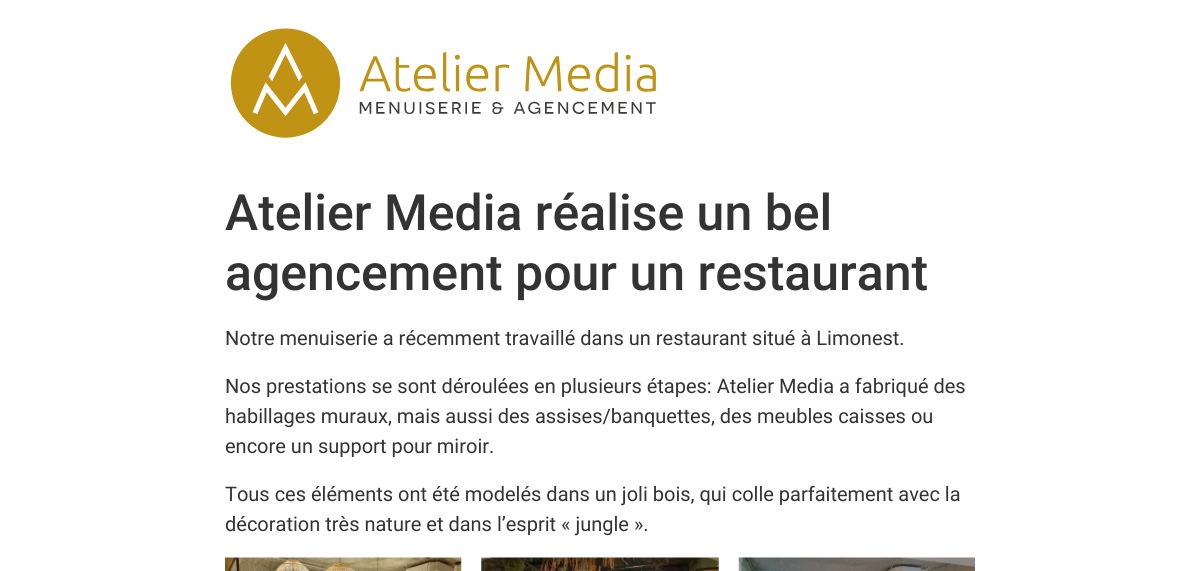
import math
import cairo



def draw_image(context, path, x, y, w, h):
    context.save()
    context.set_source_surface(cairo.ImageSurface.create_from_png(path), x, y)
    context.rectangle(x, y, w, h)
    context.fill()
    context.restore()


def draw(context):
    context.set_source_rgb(1, 1, 1)
    context.paint()
    draw_image(context, "images/1.png", 230, 28, 426, 110)
    draw_image(context, "images/2.png", 225, 557, 237, 14)
    draw_image(context, "images/3.png", 481, 557, 238, 14)
    draw_image(context, "images/4.png", 738, 557, 237, 14)
    context.select_font_face("Roboto Medium")
    context.set_font_size(50)
    context.set_source_rgb(51 / 255, 51 / 255, 51 / 255)
    context.move_to(225, 230)
    context.show_text("Atelier Media réalise un bel")
    context.move_to(225, 290)
    context.show_text("agencement pour un restaurant")
    context.select_font_face("Roboto")
    context.set_font_size(20)
    context.move_to(225, 345)
    context.show_text("Notre menuiserie a récemment travaillé dans un restaurant situé à Limonest.")
    context.move_to(225, 393)
    context.show_text("Nos prestations se sont déroulées en plusieurs étapes: Atelier Media a fabriqué des")
    context.move_to(225, 423)
    context.show_text("habillages muraux, mais aussi des assises/banquettes, des meubles caisses ou")
    context.move_to(225, 453)
    context.show_text("encore un support pour miroir.")
    context.move_to(225, 501)
    context.show_text("Tous ces éléments ont été modelés dans un joli bois, qui colle parfaitement avec la")
    context.move_to(225, 531)
    context.show_text("décoration très nature et dans l’esprit « jungle ».")


surface = cairo.ImageSurface(cairo.Format.RGB24, 1200, 571)
context = cairo.Context(surface)
options = cairo.FontOptions()
options.set_hint_metrics(cairo.HintMetrics.OFF)
options.set_hint_style(cairo.HintStyle.NONE)
context.set_font_options(options)
context.set_miter_limit(4)
draw(context)
surface.write_to_png("out.png")
